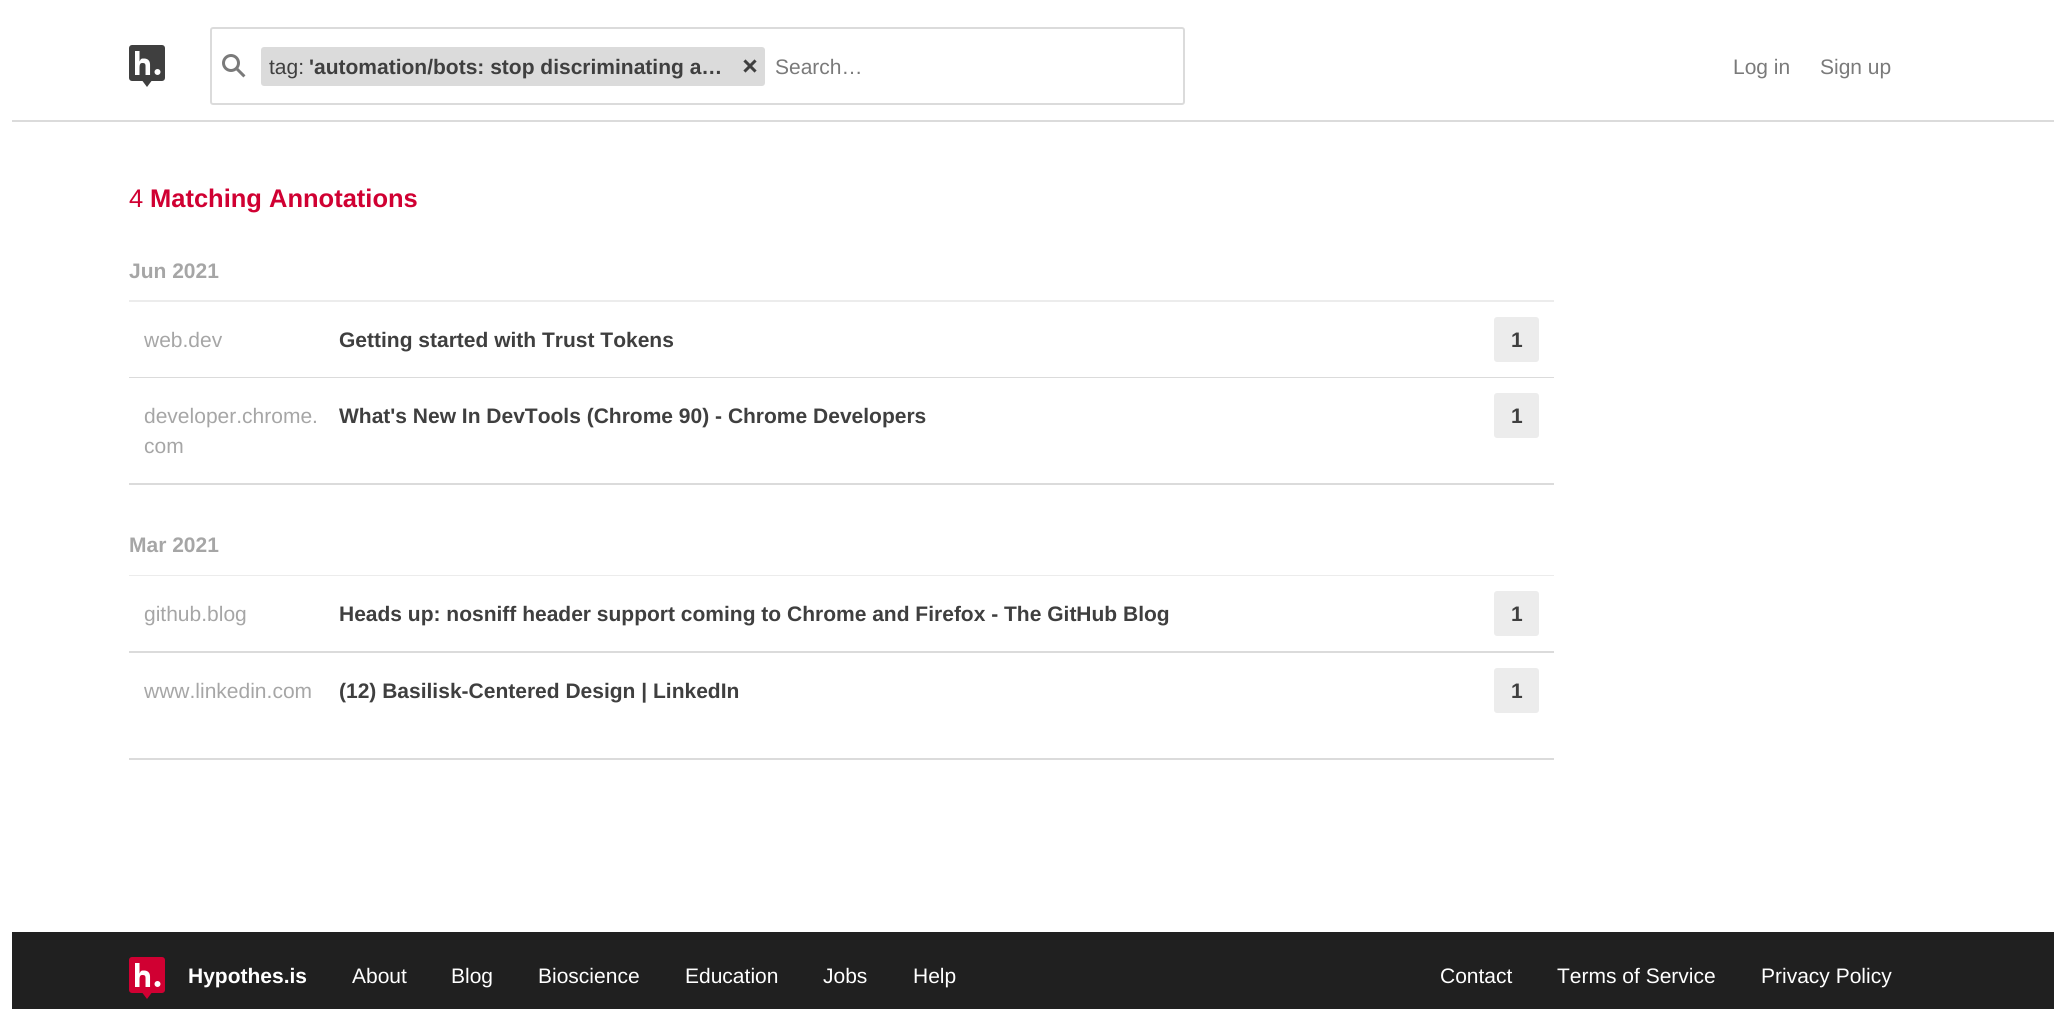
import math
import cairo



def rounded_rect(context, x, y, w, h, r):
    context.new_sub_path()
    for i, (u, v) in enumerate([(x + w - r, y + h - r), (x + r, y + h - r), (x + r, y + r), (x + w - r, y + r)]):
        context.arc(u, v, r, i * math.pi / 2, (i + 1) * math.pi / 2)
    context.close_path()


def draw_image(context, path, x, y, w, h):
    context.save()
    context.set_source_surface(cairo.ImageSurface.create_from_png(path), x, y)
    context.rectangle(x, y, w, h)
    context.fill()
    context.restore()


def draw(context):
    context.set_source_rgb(1, 1, 1)
    context.paint()
    context.set_source_rgb(219 / 255, 219 / 255, 219 / 255)
    context.rectangle(12, 120, 2042, 2)
    context.fill()
    draw_image(context, "images/1.png", 129, 45, 36, 42)
    rounded_rect(context, 211, 28, 973, 76, 2)
    context.stroke()
    draw_image(context, "images/2.png", 222, 54, 24, 24)
    rounded_rect(context, 261, 47, 504, 39, 3)
    context.fill()
    draw_image(context, "images/3.png", 743, 59, 14, 14)
    context.set_source_rgb(236 / 255, 236 / 255, 236 / 255)
    context.rectangle(129, 300, 1425, 2)
    context.fill()
    context.set_source_rgb(219 / 255, 219 / 255, 219 / 255)
    context.rectangle(129, 377, 1425, 1)
    context.fill()
    context.set_source_rgb(236 / 255, 236 / 255, 236 / 255)
    rounded_rect(context, 1494, 317, 45, 45, 3)
    context.fill()
    context.set_source_rgb(219 / 255, 219 / 255, 219 / 255)
    context.rectangle(129, 483, 1425, 2)
    context.fill()
    context.set_source_rgb(236 / 255, 236 / 255, 236 / 255)
    rounded_rect(context, 1494, 393, 45, 45, 3)
    context.fill()
    context.rectangle(129, 575, 1425, 1)
    context.fill()
    context.set_source_rgb(219 / 255, 219 / 255, 219 / 255)
    context.rectangle(129, 651, 1425, 2)
    context.fill()
    context.set_source_rgb(236 / 255, 236 / 255, 236 / 255)
    rounded_rect(context, 1494, 591, 45, 45, 3)
    context.fill()
    context.set_source_rgb(219 / 255, 219 / 255, 219 / 255)
    context.rectangle(129, 758, 1425, 2)
    context.fill()
    context.set_source_rgb(236 / 255, 236 / 255, 236 / 255)
    rounded_rect(context, 1494, 668, 45, 45, 3)
    context.fill()
    context.set_source_rgb(32 / 255, 32 / 255, 32 / 255)
    context.rectangle(12, 932, 2042, 77)
    context.fill()
    draw_image(context, "images/4.png", 129, 957, 36, 42)
    context.select_font_face("Liberation Sans")
    context.set_font_size(21)
    context.set_source_rgb(63 / 255, 63 / 255, 63 / 255)
    context.move_to(269, 74)
    context.show_text("tag:")
    context.select_font_face("Liberation Sans", cairo.FontSlant.NORMAL, cairo.FontWeight.BOLD)
    context.move_to(309, 74)
    context.show_text("'automation/bots: stop discriminating a…")
    context.select_font_face("Liberation Sans")
    context.set_source_rgb(122 / 255, 122 / 255, 122 / 255)
    context.move_to(775, 74)
    context.show_text("Search…")
    context.move_to(1733, 74)
    context.show_text("Log in")
    context.move_to(1820, 74)
    context.show_text("Sign up")
    context.set_font_size(25.5)
    context.set_source_rgb(208 / 255, 0, 50 / 255)
    context.move_to(129, 207)
    context.show_text("4")
    context.select_font_face("Liberation Sans", cairo.FontSlant.NORMAL, cairo.FontWeight.BOLD)
    context.move_to(150, 207)
    context.show_text("Matching Annotations")
    context.set_font_size(21)
    context.set_source_rgb(166 / 255, 166 / 255, 166 / 255)
    context.move_to(129, 278)
    context.show_text("Jun 2021")
    context.select_font_face("Liberation Sans")
    context.move_to(144, 347)
    context.show_text("web.dev")
    context.select_font_face("Liberation Sans", cairo.FontSlant.NORMAL, cairo.FontWeight.BOLD)
    context.set_source_rgb(63 / 255, 63 / 255, 63 / 255)
    context.move_to(339, 347)
    context.show_text("Getting started with Trust Tokens")
    context.move_to(1511, 347)
    context.show_text("1")
    context.select_font_face("Liberation Sans")
    context.set_source_rgb(166 / 255, 166 / 255, 166 / 255)
    context.move_to(144, 423)
    context.show_text("developer.chrome.")
    context.move_to(144, 453)
    context.show_text("com")
    context.select_font_face("Liberation Sans", cairo.FontSlant.NORMAL, cairo.FontWeight.BOLD)
    context.set_source_rgb(63 / 255, 63 / 255, 63 / 255)
    context.move_to(339, 423)
    context.show_text("What's New In DevTools (Chrome 90) - Chrome Developers")
    context.move_to(1511, 423)
    context.show_text("1")
    context.set_source_rgb(166 / 255, 166 / 255, 166 / 255)
    context.move_to(129, 552)
    context.show_text("Mar 2021")
    context.select_font_face("Liberation Sans")
    context.move_to(144, 621)
    context.show_text("github.blog")
    context.select_font_face("Liberation Sans", cairo.FontSlant.NORMAL, cairo.FontWeight.BOLD)
    context.set_source_rgb(63 / 255, 63 / 255, 63 / 255)
    context.move_to(339, 621)
    context.show_text("Heads up: nosniff header support coming to Chrome and Firefox - The GitHub Blog")
    context.move_to(1511, 621)
    context.show_text("1")
    context.select_font_face("Liberation Sans")
    context.set_source_rgb(166 / 255, 166 / 255, 166 / 255)
    context.move_to(144, 698)
    context.show_text("www.linkedin.com")
    context.select_font_face("Liberation Sans", cairo.FontSlant.NORMAL, cairo.FontWeight.BOLD)
    context.set_source_rgb(63 / 255, 63 / 255, 63 / 255)
    context.move_to(339, 698)
    context.show_text("(12) Basilisk-Centered Design | LinkedIn")
    context.move_to(1511, 698)
    context.show_text("1")
    context.set_source_rgb(1, 1, 1)
    context.move_to(188, 983)
    context.show_text("Hypothes.is")
    context.select_font_face("Liberation Sans")
    context.move_to(352, 983)
    context.show_text("About")
    context.move_to(451, 983)
    context.show_text("Blog")
    context.move_to(538, 983)
    context.show_text("Bioscience")
    context.move_to(685, 983)
    context.show_text("Education")
    context.move_to(823, 983)
    context.show_text("Jobs")
    context.move_to(913, 983)
    context.show_text("Help")
    context.move_to(1440, 983)
    context.show_text("Contact")
    context.move_to(1557, 983)
    context.show_text("Terms of Service")
    context.move_to(1761, 983)
    context.show_text("Privacy Policy")


surface = cairo.ImageSurface(cairo.Format.RGB24, 2065, 1009)
context = cairo.Context(surface)
options = cairo.FontOptions()
options.set_hint_metrics(cairo.HintMetrics.OFF)
options.set_hint_style(cairo.HintStyle.NONE)
context.set_font_options(options)
context.set_miter_limit(4)
draw(context)
surface.write_to_png("out.png")
